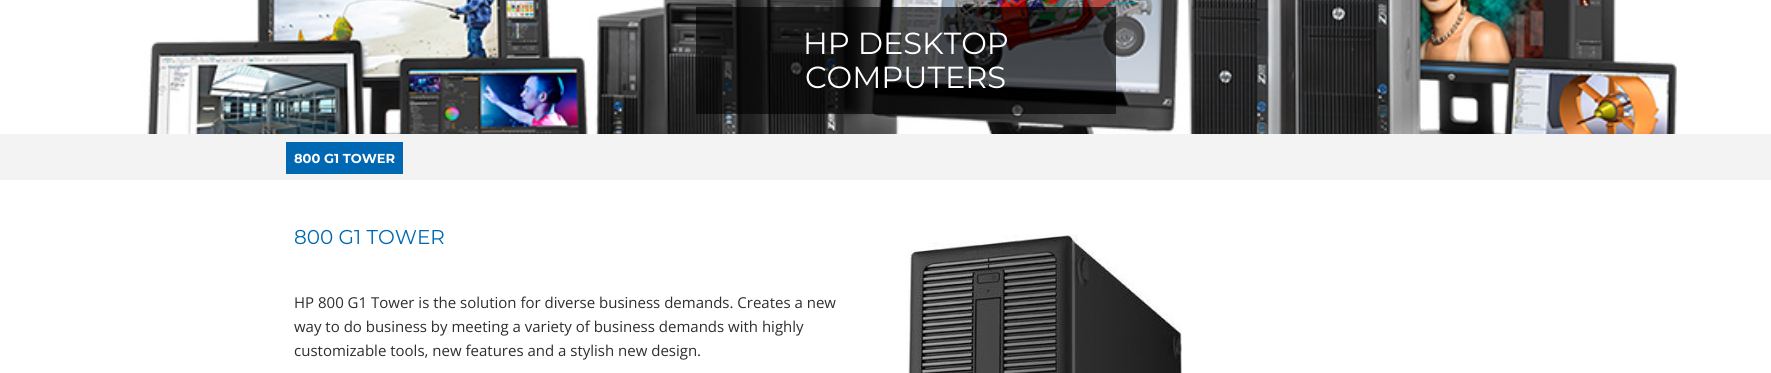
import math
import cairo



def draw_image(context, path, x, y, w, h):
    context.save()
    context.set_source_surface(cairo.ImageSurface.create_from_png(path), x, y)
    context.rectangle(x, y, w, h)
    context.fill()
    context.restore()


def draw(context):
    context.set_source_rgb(1, 1, 1)
    context.paint()
    draw_image(context, "images/1.png", 0, 0, 1771, 134)
    context.set_source_rgba(0, 0, 0, 0.63)
    context.rectangle(696, 7, 420, 107)
    context.fill()
    context.set_source_rgb(243 / 255, 243 / 255, 243 / 255)
    context.rectangle(0, 134, 1771, 46)
    context.fill()
    context.set_source_rgb(0, 104 / 255, 179 / 255)
    context.rectangle(286, 142, 117, 32)
    context.fill()
    draw_image(context, "images/2.png", 906, 234, 276, 139)
    context.select_font_face("Montserrat")
    context.set_font_size(30.5)
    context.set_source_rgb(1, 1, 1)
    context.move_to(803, 54)
    context.show_text("HP DESKTOP")
    context.move_to(805, 88)
    context.show_text("COMPUTERS")
    context.select_font_face("Montserrat", cairo.FontSlant.NORMAL, cairo.FontWeight.BOLD)
    context.set_font_size(13)
    context.move_to(294, 163)
    context.show_text("800 G1 TOWER")
    context.select_font_face("Montserrat")
    context.set_font_size(20)
    context.set_source_rgb(0, 104 / 255, 179 / 255)
    context.move_to(294, 244)
    context.show_text("800 G1 TOWER")
    context.select_font_face("Open Sans")
    context.set_font_size(15)
    context.set_source_rgb(46 / 255, 46 / 255, 46 / 255)
    context.move_to(294, 308)
    context.show_text("HP 800 G1 Tower is the solution for diverse business demands. Creates a new")
    context.move_to(294, 332)
    context.show_text("way to do business by meeting a variety of business demands with highly")
    context.move_to(294, 356)
    context.show_text("customizable tools, new features and a stylish new design.")


surface = cairo.ImageSurface(cairo.Format.RGB24, 1771, 373)
context = cairo.Context(surface)
options = cairo.FontOptions()
options.set_hint_metrics(cairo.HintMetrics.OFF)
options.set_hint_style(cairo.HintStyle.NONE)
context.set_font_options(options)
context.set_miter_limit(4)
draw(context)
surface.write_to_png("out.png")
